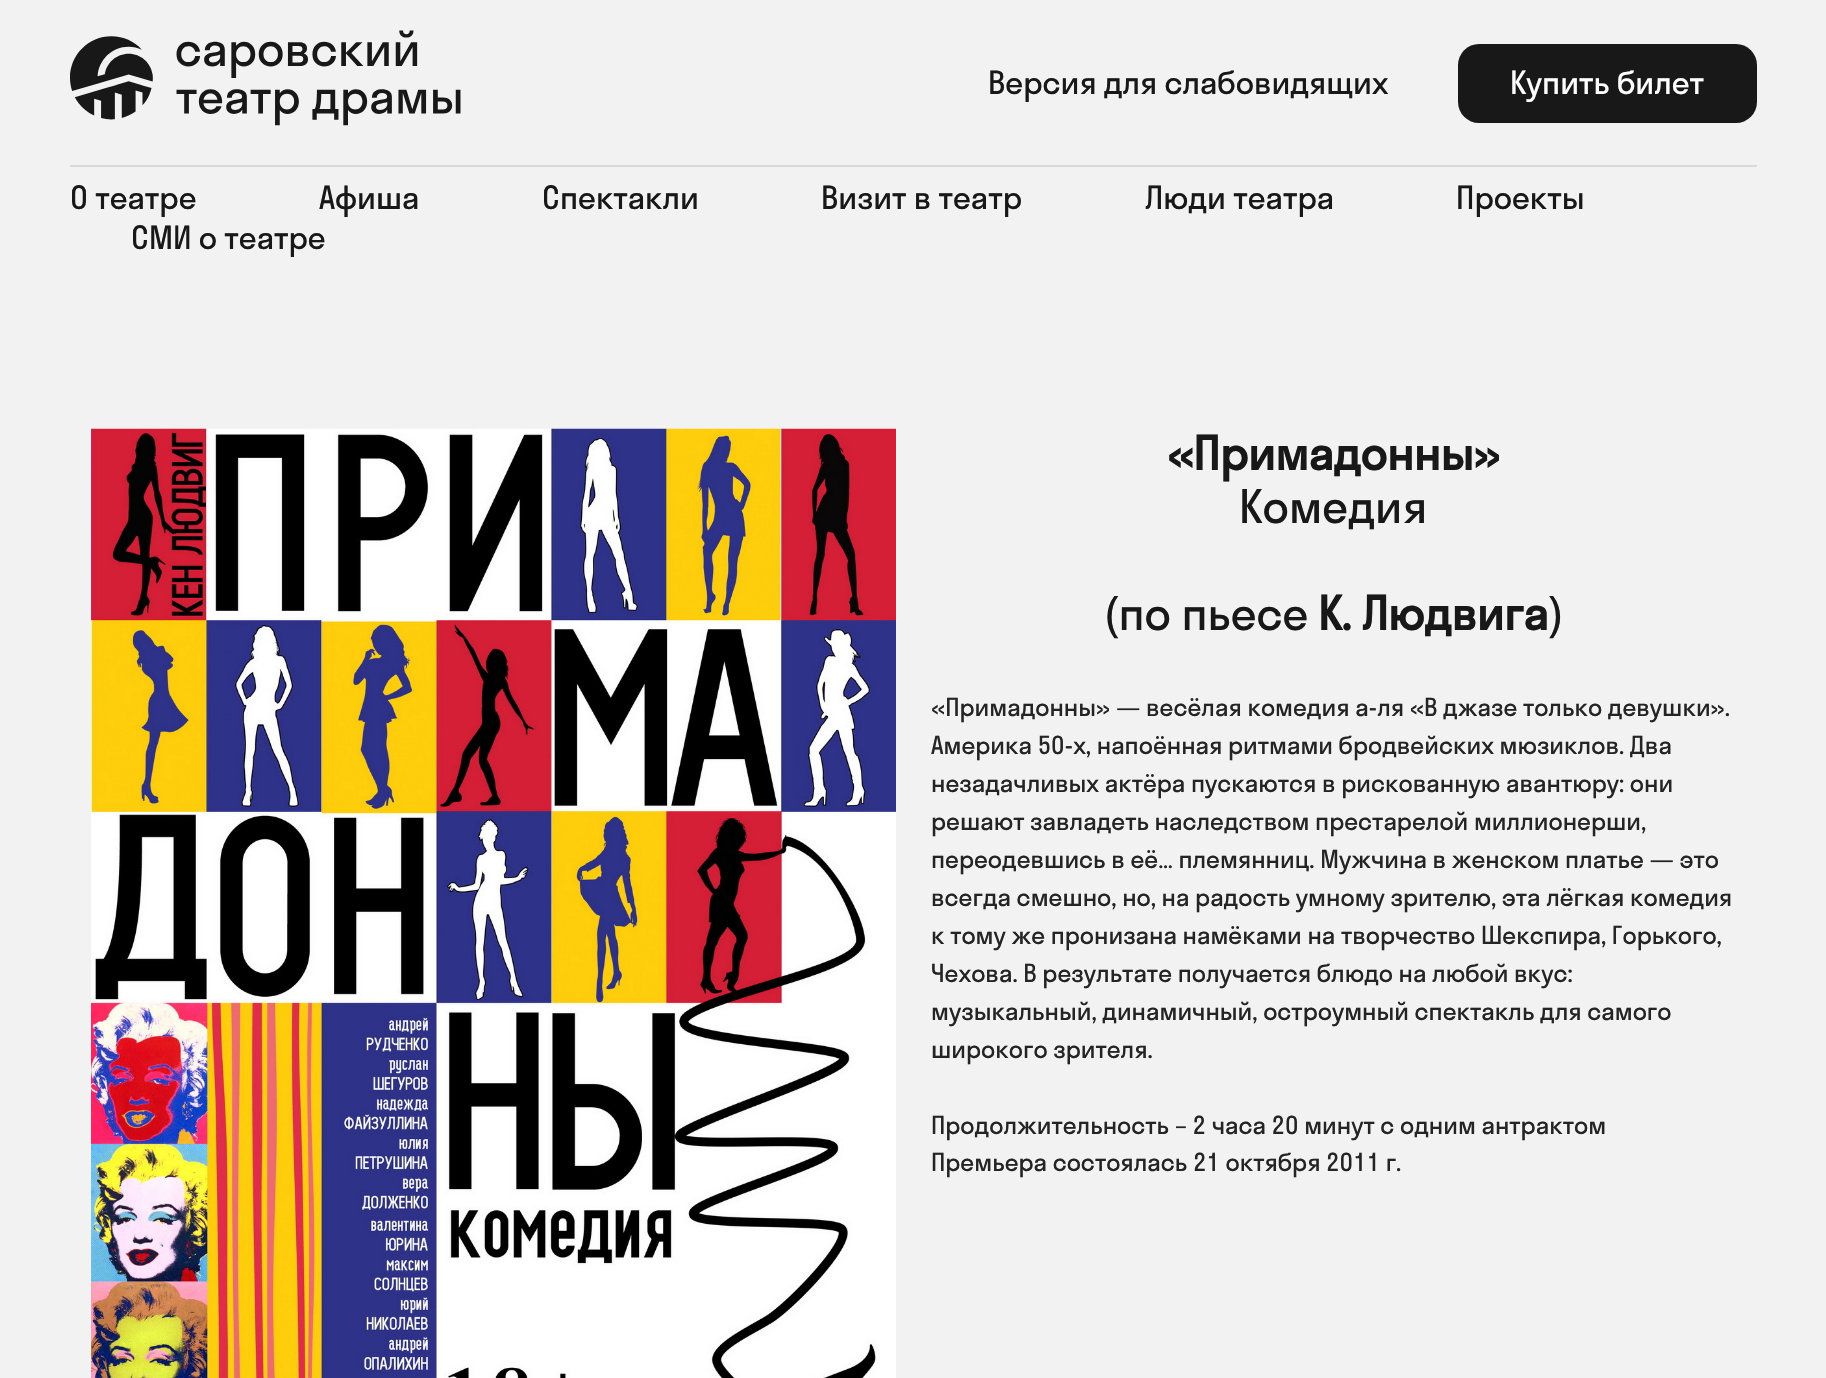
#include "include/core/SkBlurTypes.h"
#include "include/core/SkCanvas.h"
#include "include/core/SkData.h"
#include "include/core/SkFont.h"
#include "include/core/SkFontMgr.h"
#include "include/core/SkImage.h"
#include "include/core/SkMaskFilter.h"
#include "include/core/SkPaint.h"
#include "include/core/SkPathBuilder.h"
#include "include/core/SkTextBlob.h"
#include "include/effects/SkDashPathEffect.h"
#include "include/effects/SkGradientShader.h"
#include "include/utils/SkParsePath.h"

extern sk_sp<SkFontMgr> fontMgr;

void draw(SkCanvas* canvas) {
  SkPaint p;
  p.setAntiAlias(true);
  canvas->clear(SkColorSetRGB(242, 242, 242));
  canvas->drawImageRect(SkImages::DeferredFromEncodedData(SkData::MakeFromFileName("images/1.png")), SkRect::MakeLTRB(70, 30, 461, 126), SkSamplingOptions());
  p.setColor(SkColorSetRGB(24, 24, 24));
  canvas->drawRoundRect(SkRect::MakeLTRB(1458, 44, 1757, 123), 21, 21, p);
  p.setColor(SkColorSetRGB(217, 217, 217));
  canvas->drawRect(SkRect::MakeLTRB(70, 165, 1757, 167), p);
  canvas->drawImageRect(SkImages::DeferredFromEncodedData(SkData::MakeFromFileName("images/2.png")), SkRect::MakeLTRB(91, 428, 896, 1378), SkSamplingOptions());
  SkFont font1(fontMgr->matchFamilyStyle("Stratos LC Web", SkFontStyle::Normal()), 31.5f);
  font1.setSubpixel(true);
  p.setColor(SkColorSetRGB(24, 24, 24));
  canvas->drawString("Версия для слабовидящих", 988, 94, font1, p);
  p.setColor(SK_ColorWHITE);
  canvas->drawString("Купить билет", 1510, 94, font1, p);
  p.setColor(SkColorSetRGB(24, 24, 24));
  canvas->drawString("О театре", 70, 209, font1, p);
  canvas->drawString("Афиша", 319, 209, font1, p);
  canvas->drawString("Спектакли", 542, 209, font1, p);
  canvas->drawString("Визит в театр", 821, 209, font1, p);
  canvas->drawString("Люди театра", 1145, 209, font1, p);
  canvas->drawString("Проекты", 1456, 209, font1, p);
  canvas->drawString("СМИ о театре", 131, 249, font1, p);
  SkFont font2(fontMgr->matchFamilyStyle("Stratos LC Web", SkFontStyle::Bold()), 45.5f);
  font2.setSubpixel(true);
  canvas->drawString("«Примадонны»", 1167, 470, font2, p);
  SkFont font3(fontMgr->matchFamilyStyle("Stratos LC Web", SkFontStyle::Normal()), 45.5f);
  font3.setSubpixel(true);
  canvas->drawString("Комедия", 1239, 523, font3, p);
  canvas->drawString("(по пьесе", 1103, 630, font3, p);
  canvas->drawString("К. Людвига", 1318, 630, font2, p);
  canvas->drawString(")", 1549, 630, font3, p);
  SkFont font4(fontMgr->matchFamilyStyle("Stratos LC Web", SkFontStyle::Normal()), 24.5f);
  font4.setSubpixel(true);
  p.setColor(SkColorSetRGB(36, 36, 36));
  canvas->drawString("«Примадонны» — весёлая комедия а-ля «В джазе только девушки».", 931, 716, font4, p);
  canvas->drawString("Америка 50-х, напоённая ритмами бродвейских мюзиклов. Два", 931, 754, font4, p);
  canvas->drawString("незадачливых актёра пускаются в рискованную авантюру: они", 931, 792, font4, p);
  canvas->drawString("решают завладеть наследством престарелой миллионерши,", 931, 830, font4, p);
  canvas->drawString("переодевшись в её… племянниц. Мужчина в женском платье — это", 931, 868, font4, p);
  canvas->drawString("всегда смешно, но, на радость умному зрителю, эта лёгкая комедия", 931, 906, font4, p);
  canvas->drawString("к тому же пронизана намёками на творчество Шекспира, Горького,", 931, 944, font4, p);
  canvas->drawString("Чехова. В результате получается блюдо на любой вкус:", 931, 982, font4, p);
  canvas->drawString("музыкальный, динамичный, остроумный спектакль для самого", 931, 1020, font4, p);
  canvas->drawString("широкого зрителя.", 931, 1058, font4, p);
  canvas->drawString("Продолжительность – 2 часа 20 минут с одним антрактом", 931, 1134, font4, p);
  canvas->drawString("Премьера состоялась 21 октября 2011 г.", 931, 1171, font4, p);
}
